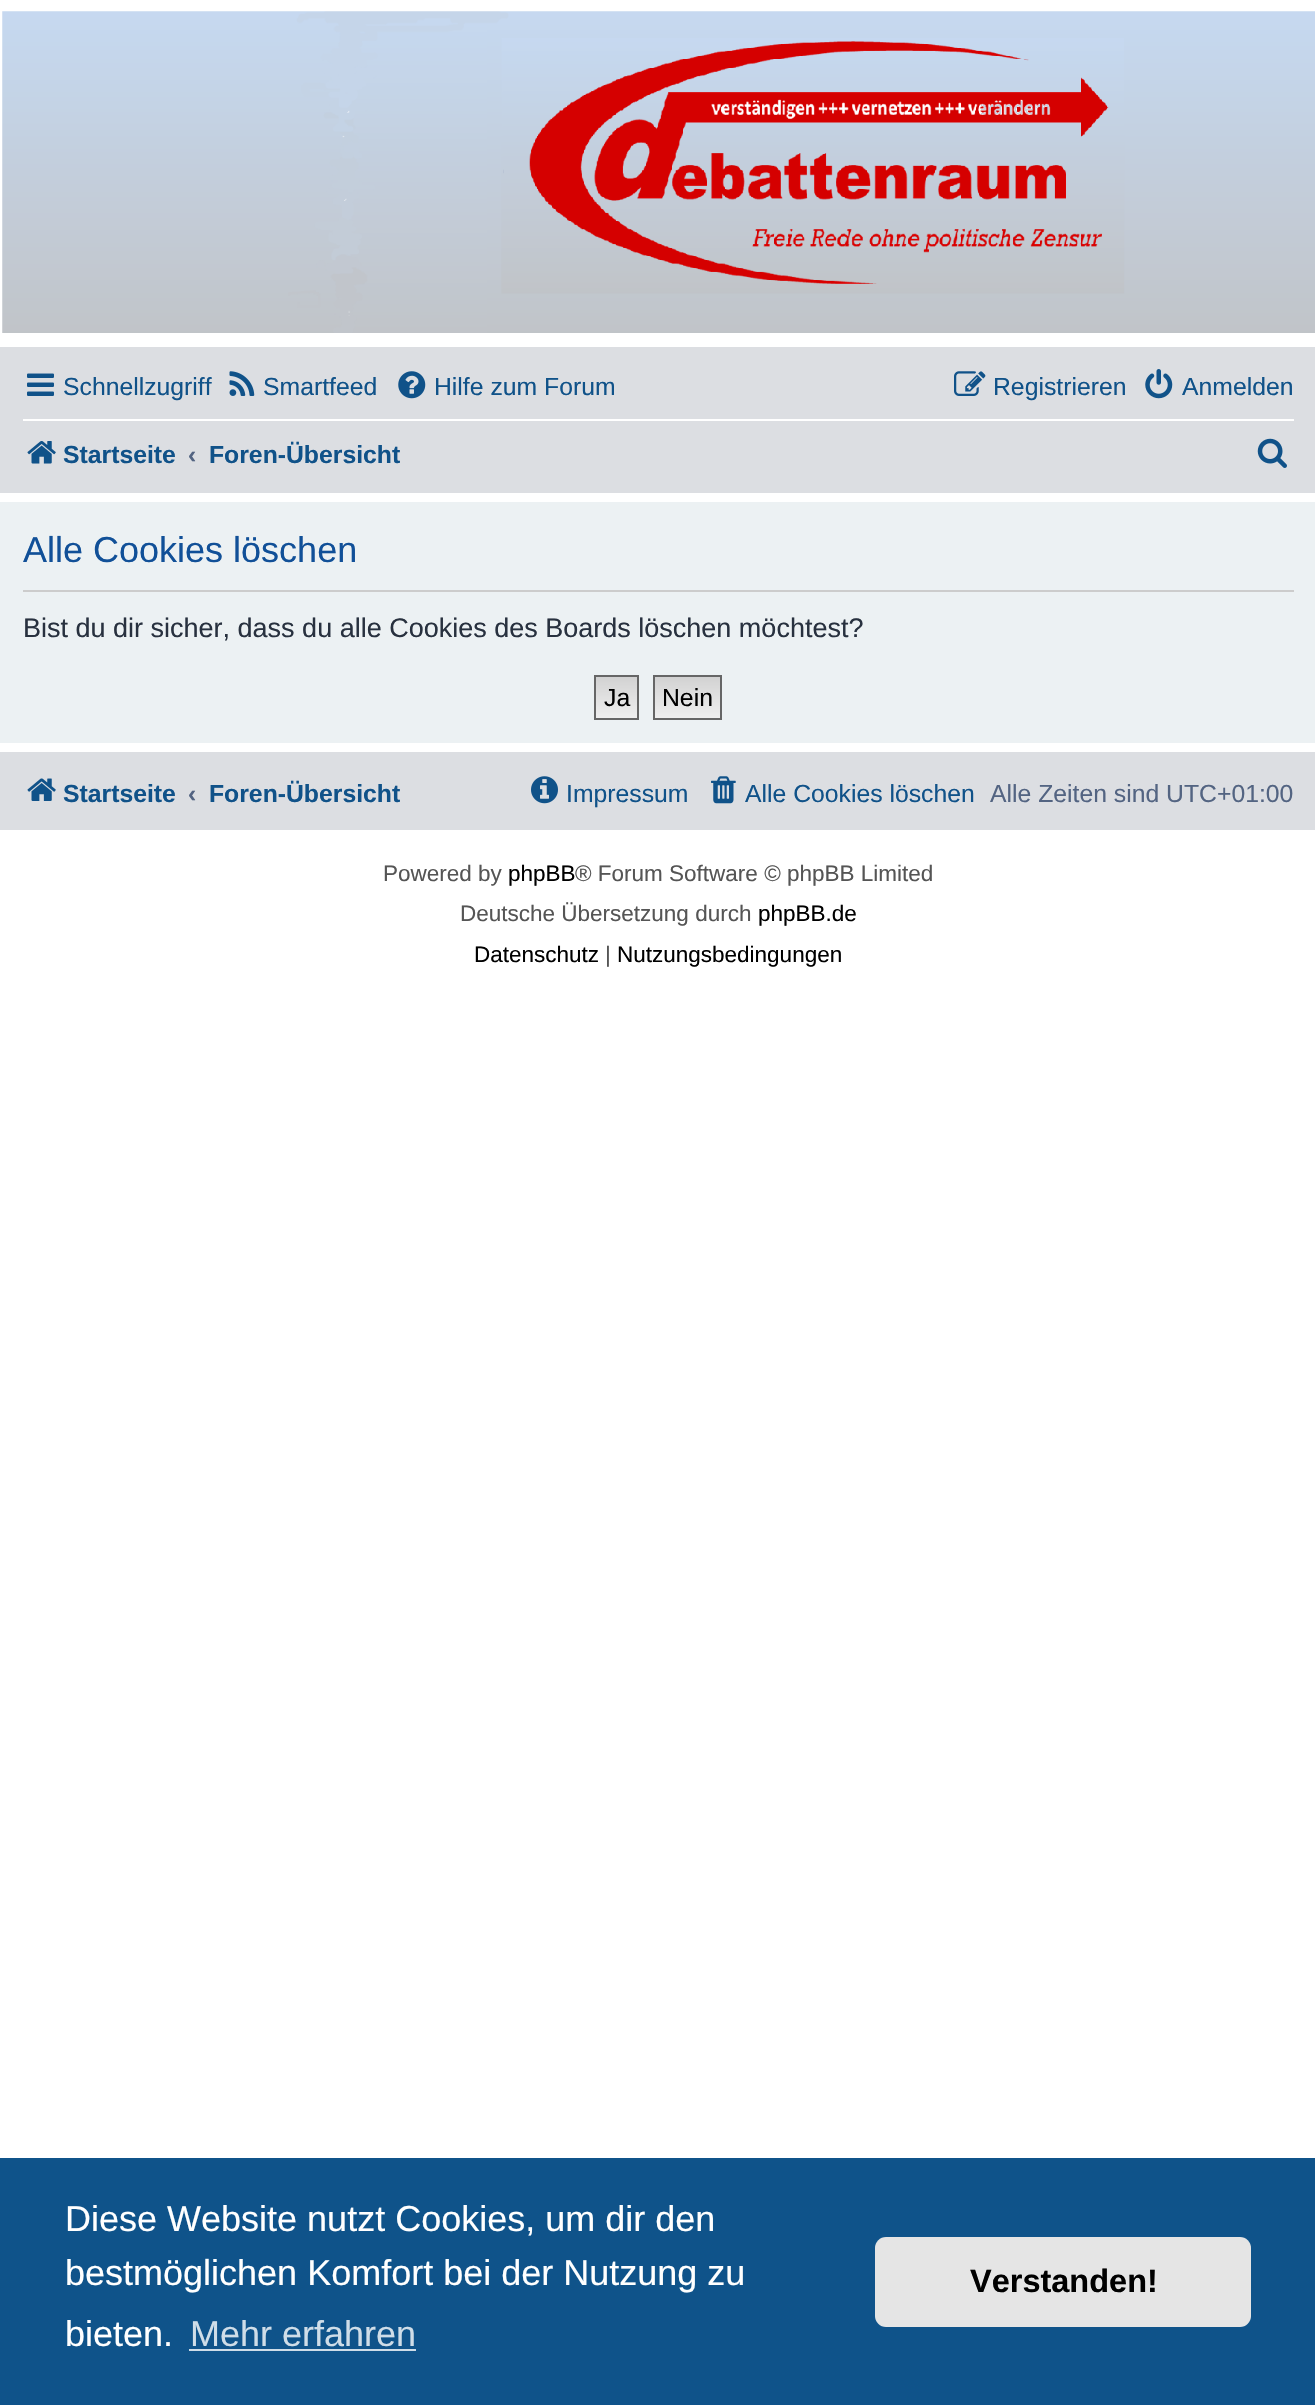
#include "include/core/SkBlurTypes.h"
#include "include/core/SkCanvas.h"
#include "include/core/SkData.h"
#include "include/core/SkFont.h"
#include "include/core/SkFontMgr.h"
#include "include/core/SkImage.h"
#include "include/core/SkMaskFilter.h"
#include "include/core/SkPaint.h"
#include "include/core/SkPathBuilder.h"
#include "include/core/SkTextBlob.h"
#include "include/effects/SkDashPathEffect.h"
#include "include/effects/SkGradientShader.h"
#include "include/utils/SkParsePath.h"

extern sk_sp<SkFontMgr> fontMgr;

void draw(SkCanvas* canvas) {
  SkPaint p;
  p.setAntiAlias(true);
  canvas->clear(SK_ColorWHITE);
  canvas->drawImageRect(SkImages::DeferredFromEncodedData(SkData::MakeFromFileName("images/1.png")), SkRect::MakeLTRB(2, 11, 1315, 333), SkSamplingOptions());
  p.setColor(SkColorSetRGB(220, 222, 226));
  canvas->drawRect(SkRect::MakeLTRB(0, 347, 1315, 493), p);
  canvas->drawImageRect(SkImages::DeferredFromEncodedData(SkData::MakeFromFileName("images/2.png")), SkRect::MakeLTRB(27, 373, 54, 396), SkSamplingOptions());
  canvas->drawImageRect(SkImages::DeferredFromEncodedData(SkData::MakeFromFileName("images/3.png")), SkRect::MakeLTRB(229, 371, 255, 396), SkSamplingOptions());
  canvas->drawImageRect(SkImages::DeferredFromEncodedData(SkData::MakeFromFileName("images/4.png")), SkRect::MakeLTRB(398, 371, 426, 399), SkSamplingOptions());
  canvas->drawImageRect(SkImages::DeferredFromEncodedData(SkData::MakeFromFileName("images/5.png")), SkRect::MakeLTRB(954, 371, 986, 396), SkSamplingOptions());
  canvas->drawImageRect(SkImages::DeferredFromEncodedData(SkData::MakeFromFileName("images/6.png")), SkRect::MakeLTRB(1145, 369, 1173, 399), SkSamplingOptions());
  p.setColor(SK_ColorWHITE);
  canvas->drawRect(SkRect::MakeLTRB(23, 419, 1294, 421), p);
  canvas->drawImageRect(SkImages::DeferredFromEncodedData(SkData::MakeFromFileName("images/7.png")), SkRect::MakeLTRB(27, 441, 56, 464), SkSamplingOptions());
  canvas->drawImageRect(SkImages::DeferredFromEncodedData(SkData::MakeFromFileName("images/8.png")), SkRect::MakeLTRB(1257, 438, 1287, 468), SkSamplingOptions());
  p.setColor(SkColorSetRGB(236, 241, 243));
  canvas->drawRect(SkRect::MakeLTRB(0, 502, 1315, 743), p);
  p.setColor(SkColorSetRGB(204, 204, 204));
  canvas->drawRect(SkRect::MakeLTRB(23, 590, 1294, 592), p);
  {
    const SkColor colors[] = {SkColorSetRGB(210, 210, 210), SkColorSetRGB(239, 239, 239)};
    const float stops[] = {0, 1};
    const SkPoint ends[] = {{617, 677}, {617, 718}};
    p.setShader(SkGradientShader::MakeLinear(ends, colors, stops, 2, SkTileMode::kClamp));
    p.setAlpha(255);
  }
  canvas->drawRect(SkRect::MakeLTRB(596, 677, 637, 718), p);
  p.setStyle(SkPaint::kStroke_Style);
  p.setStrokeWidth(2);
  p.setShader(nullptr);
  p.setColor(SkColorSetRGB(102, 102, 102));
  canvas->drawRect(SkRect::MakeLTRB(595, 676, 638, 719), p);
  p.setStyle(SkPaint::kFill_Style);
  {
    const SkColor colors[] = {SkColorSetRGB(210, 210, 210), SkColorSetRGB(239, 239, 239)};
    const float stops[] = {0, 1};
    const SkPoint ends[] = {{687, 677}, {687, 718}};
    p.setShader(SkGradientShader::MakeLinear(ends, colors, stops, 2, SkTileMode::kClamp));
    p.setAlpha(255);
  }
  canvas->drawRect(SkRect::MakeLTRB(655, 677, 720, 718), p);
  p.setStyle(SkPaint::kStroke_Style);
  p.setShader(nullptr);
  p.setColor(SkColorSetRGB(102, 102, 102));
  canvas->drawRect(SkRect::MakeLTRB(654, 676, 721, 719), p);
  p.setStyle(SkPaint::kFill_Style);
  p.setColor(SkColorSetRGB(220, 222, 226));
  canvas->drawRect(SkRect::MakeLTRB(0, 752, 1315, 830), p);
  canvas->drawImageRect(SkImages::DeferredFromEncodedData(SkData::MakeFromFileName("images/9.png")), SkRect::MakeLTRB(27, 778, 56, 801), SkSamplingOptions());
  canvas->drawImageRect(SkImages::DeferredFromEncodedData(SkData::MakeFromFileName("images/10.png")), SkRect::MakeLTRB(531, 776, 558, 804), SkSamplingOptions());
  canvas->drawImageRect(SkImages::DeferredFromEncodedData(SkData::MakeFromFileName("images/11.png")), SkRect::MakeLTRB(711, 776, 736, 804), SkSamplingOptions());
  p.setColor(SkColorSetRGB(15, 83, 138));
  canvas->drawRect(SkRect::MakeLTRB(0, 2158, 1315, 2405), p);
  p.setColor(SkColorSetRGB(207, 221, 232));
  canvas->drawRect(SkRect::MakeLTRB(189, 2349, 416, 2351), p);
  p.setColor(SkColorSetRGB(229, 229, 229));
  canvas->drawRoundRect(SkRect::MakeLTRB(875, 2237, 1251, 2327), 11, 11, p);
  SkFont font1(fontMgr->matchFamilyStyle("Liberation Sans", SkFontStyle::Normal()), 24.75f);
  font1.setSubpixel(true);
  p.setColor(SkColorSetRGB(16, 82, 137));
  canvas->drawString("Schnellzugriff", 63, 395, font1, p);
  canvas->drawString("Smartfeed", 263, 395, font1, p);
  canvas->drawString("Hilfe zum Forum", 434, 395, font1, p);
  canvas->drawString("Registrieren", 993, 395, font1, p);
  canvas->drawString("Anmelden", 1182, 395, font1, p);
  SkFont font2(fontMgr->matchFamilyStyle("Liberation Sans", SkFontStyle::Bold()), 24.75f);
  font2.setSubpixel(true);
  canvas->drawString("Startseite", 63, 463, font2, p);
  p.setColor(SkColorSetRGB(83, 100, 130));
  canvas->drawString("‹", 188, 463, font2, p);
  p.setColor(SkColorSetRGB(16, 82, 137));
  canvas->drawString("Foren-Übersicht", 209, 463, font2, p);
  SkFont font3(fontMgr->matchFamilyStyle("Liberation Sans", SkFontStyle::Normal()), 36);
  font3.setSubpixel(true);
  p.setColor(SkColorSetRGB(17, 80, 152));
  canvas->drawString("Alle Cookies löschen", 23, 562, font3, p);
  SkFont font4(fontMgr->matchFamilyStyle("Liberation Sans", SkFontStyle::Normal()), 27);
  font4.setSubpixel(true);
  p.setColor(SkColorSetRGB(40, 49, 63));
  canvas->drawString("Bist du dir sicher, dass du alle Cookies des Boards löschen möchtest?", 23, 637, font4, p);
  p.setColor(SK_ColorBLACK);
  canvas->drawString("Ja", 604, 706, font1, p);
  canvas->drawString("Nein", 662, 706, font1, p);
  p.setColor(SkColorSetRGB(16, 82, 137));
  canvas->drawString("Startseite", 63, 802, font2, p);
  p.setColor(SkColorSetRGB(83, 100, 130));
  canvas->drawString("‹", 188, 802, font2, p);
  p.setColor(SkColorSetRGB(16, 82, 137));
  canvas->drawString("Foren-Übersicht", 209, 802, font2, p);
  canvas->drawString("Impressum", 566, 802, font1, p);
  canvas->drawString("Alle Cookies löschen", 745, 802, font1, p);
  p.setColor(SkColorSetRGB(83, 100, 130));
  canvas->drawString("Alle Zeiten sind UTC+01:00", 990, 802, font1, p);
  SkFont font5(fontMgr->matchFamilyStyle("Liberation Sans", SkFontStyle::Normal()), 22.5f);
  font5.setSubpixel(true);
  p.setColor(SkColorSetRGB(85, 85, 85));
  canvas->drawString("Powered by", 383, 881, font5, p);
  p.setColor(SK_ColorBLACK);
  canvas->drawString("phpBB", 508, 881, font5, p);
  p.setColor(SkColorSetRGB(85, 85, 85));
  canvas->drawString("® Forum Software © phpBB Limited", 575, 881, font5, p);
  canvas->drawString("Deutsche Übersetzung durch", 460, 921, font5, p);
  p.setColor(SK_ColorBLACK);
  canvas->drawString("phpBB.de", 758, 921, font5, p);
  canvas->drawString("Datenschutz", 474, 962, font5, p);
  p.setColor(SkColorSetRGB(85, 85, 85));
  canvas->drawString("|", 605, 962, font5, p);
  p.setColor(SK_ColorBLACK);
  canvas->drawString("Nutzungsbedingungen", 617, 962, font5, p);
  p.setColor(SK_ColorWHITE);
  canvas->drawString("Diese Website nutzt Cookies, um dir den", 65, 2231, font3, p);
  canvas->drawString("bestmöglichen Komfort bei der Nutzung zu", 65, 2285, font3, p);
  canvas->drawString("bieten.", 65, 2346, font3, p);
  p.setColor(SkColorSetRGB(207, 221, 232));
  canvas->drawString("Mehr erfahren", 190, 2346, font3, p);
  SkFont font6(fontMgr->matchFamilyStyle("Liberation Sans", SkFontStyle::Bold()), 32.5f);
  font6.setSubpixel(true);
  p.setColor(SK_ColorBLACK);
  canvas->drawString("Verstanden!", 970, 2292, font6, p);
}
